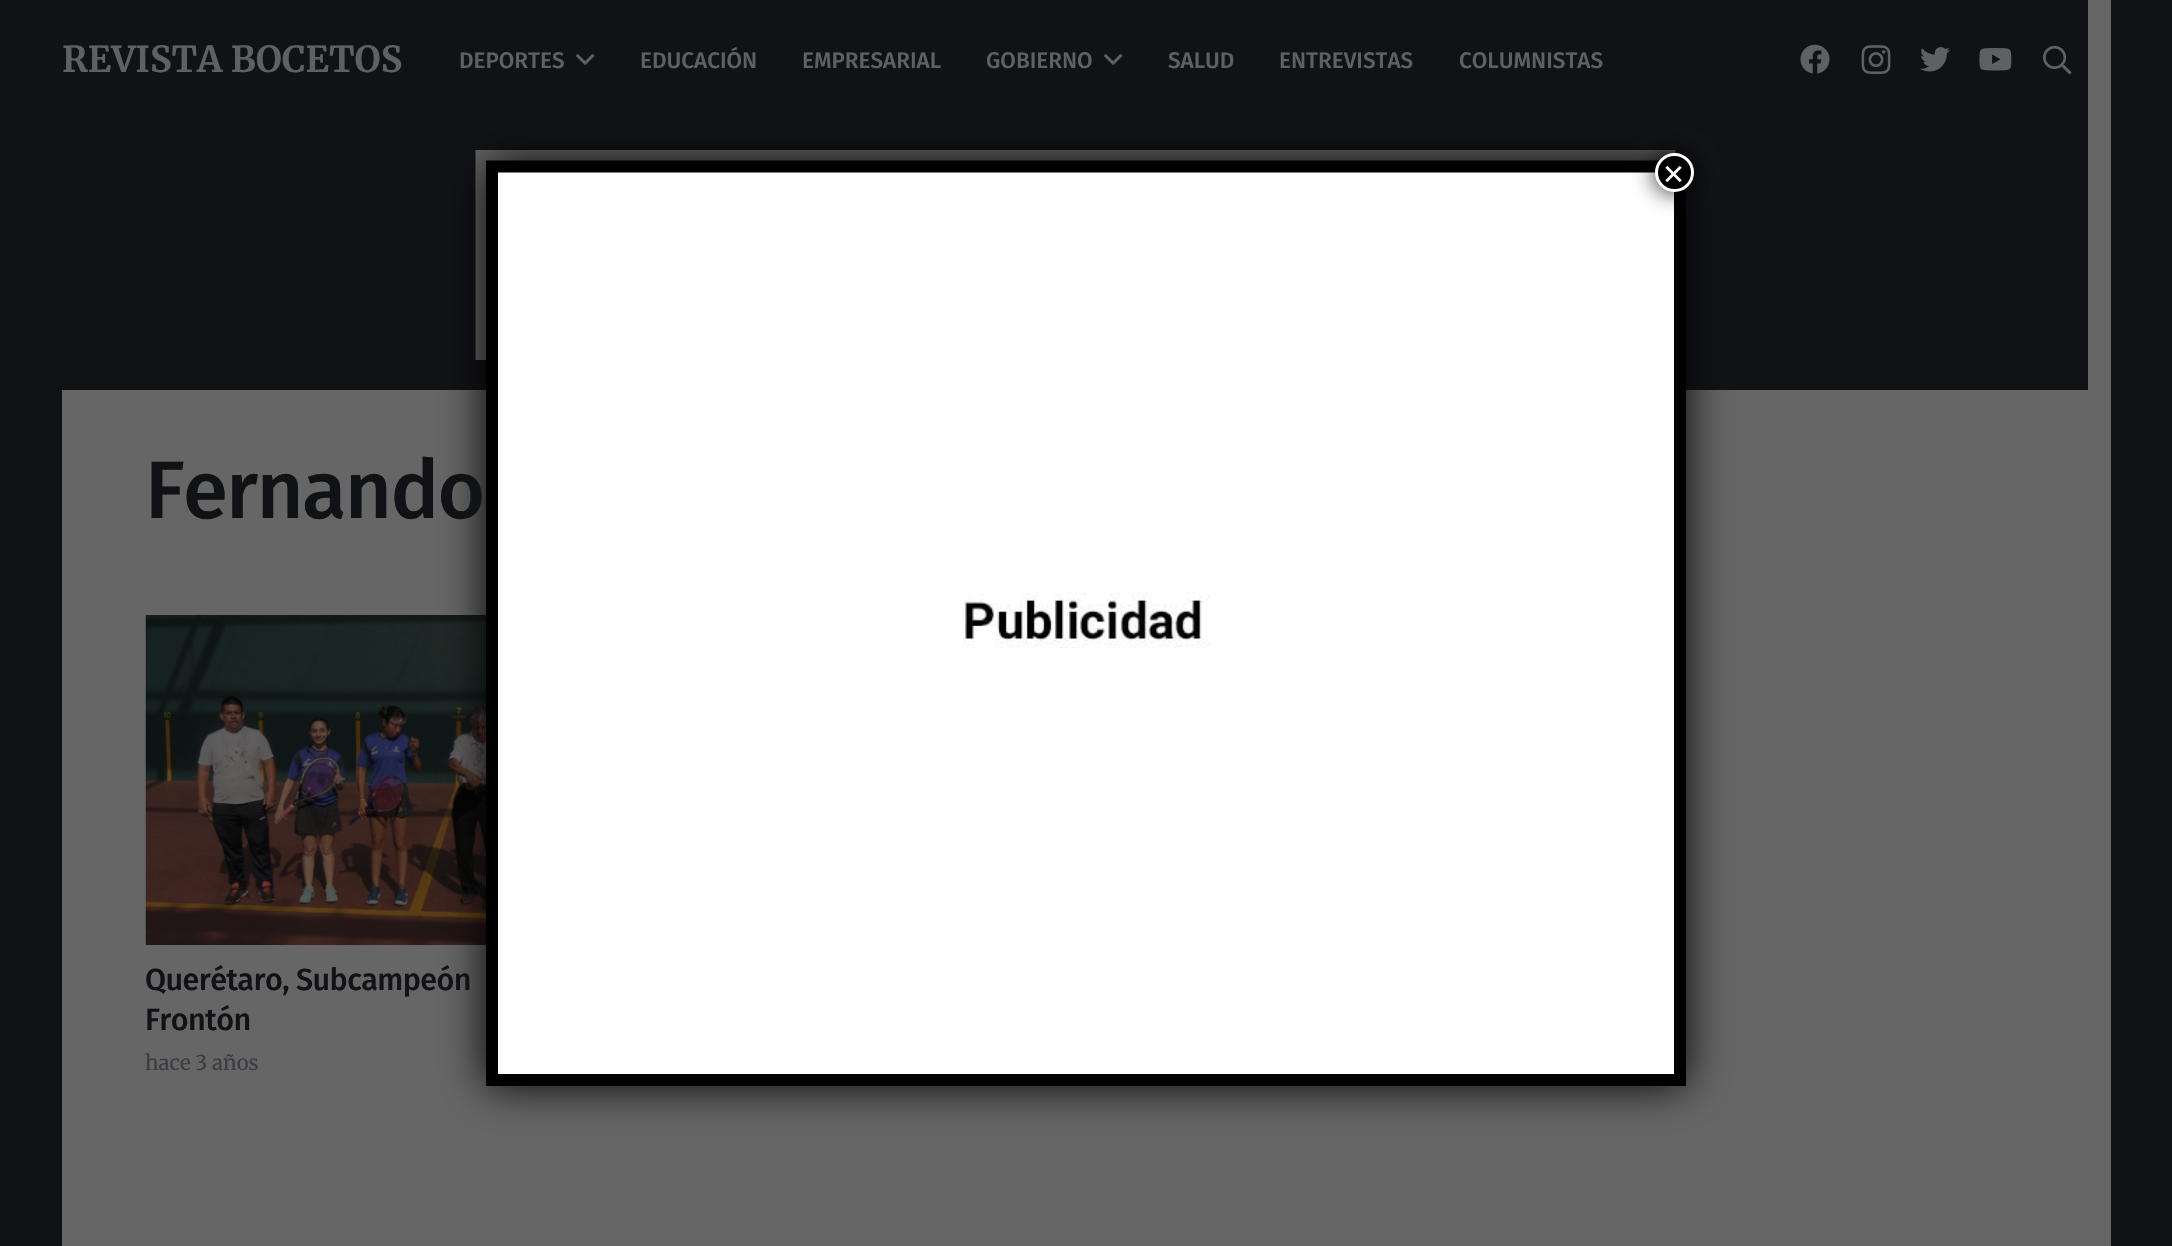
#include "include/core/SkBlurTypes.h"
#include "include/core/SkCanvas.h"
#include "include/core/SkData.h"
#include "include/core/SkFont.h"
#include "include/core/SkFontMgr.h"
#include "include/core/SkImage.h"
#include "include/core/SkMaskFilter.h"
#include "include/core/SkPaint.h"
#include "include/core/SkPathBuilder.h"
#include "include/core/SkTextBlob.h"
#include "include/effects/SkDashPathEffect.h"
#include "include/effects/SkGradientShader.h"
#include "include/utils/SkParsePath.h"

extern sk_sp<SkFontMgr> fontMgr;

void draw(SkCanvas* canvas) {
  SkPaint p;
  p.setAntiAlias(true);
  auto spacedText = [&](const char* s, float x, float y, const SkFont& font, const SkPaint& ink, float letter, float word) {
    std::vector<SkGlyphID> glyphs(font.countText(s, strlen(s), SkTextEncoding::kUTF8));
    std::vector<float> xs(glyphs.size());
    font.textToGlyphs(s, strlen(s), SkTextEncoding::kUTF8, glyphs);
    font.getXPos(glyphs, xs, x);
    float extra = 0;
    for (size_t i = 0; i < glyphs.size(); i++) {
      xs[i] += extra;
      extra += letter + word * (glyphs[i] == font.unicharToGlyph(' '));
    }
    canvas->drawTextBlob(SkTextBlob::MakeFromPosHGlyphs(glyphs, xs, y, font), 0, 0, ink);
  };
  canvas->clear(SkColorSetRGB(17, 18, 22));
  p.setColor(SkColorSetRGB(102, 102, 102));
  canvas->drawRect(SkRect::MakeLTRB(62, 0, 2111, 1246), p);
  p.setColor(SkColorSetRGB(17, 18, 22));
  canvas->drawRect(SkRect::MakeLTRB(62, 0, 2088, 390), p);
  canvas->drawImageRect(SkImages::DeferredFromEncodedData(SkData::MakeFromFileName("images/1.png")), SkRect::MakeLTRB(576, 54, 595, 65), SkSamplingOptions());
  canvas->drawImageRect(SkImages::DeferredFromEncodedData(SkData::MakeFromFileName("images/1.png")), SkRect::MakeLTRB(1104, 54, 1123, 65), SkSamplingOptions());
  canvas->drawImageRect(SkImages::DeferredFromEncodedData(SkData::MakeFromFileName("images/2.png")), SkRect::MakeLTRB(1800, 44, 1830, 74), SkSamplingOptions());
  canvas->drawImageRect(SkImages::DeferredFromEncodedData(SkData::MakeFromFileName("images/3.png")), SkRect::MakeLTRB(1861, 45, 1891, 75), SkSamplingOptions());
  canvas->drawImageRect(SkImages::DeferredFromEncodedData(SkData::MakeFromFileName("images/4.png")), SkRect::MakeLTRB(1920, 47, 1950, 72), SkSamplingOptions());
  canvas->drawImageRect(SkImages::DeferredFromEncodedData(SkData::MakeFromFileName("images/5.png")), SkRect::MakeLTRB(1979, 48, 2012, 71), SkSamplingOptions());
  canvas->drawImageRect(SkImages::DeferredFromEncodedData(SkData::MakeFromFileName("images/6.png")), SkRect::MakeLTRB(2043, 45, 2072, 75), SkSamplingOptions());
  canvas->drawImageRect(SkImages::DeferredFromEncodedData(SkData::MakeFromFileName("images/7.png")), SkRect::MakeLTRB(475, 150, 1676, 360), SkSamplingOptions());
  canvas->drawImageRect(SkImages::DeferredFromEncodedData(SkData::MakeFromFileName("images/8.png")), SkRect::MakeLTRB(145, 615, 486, 945), SkSamplingOptions());
  p.setColor(SkColorSetRGB(2, 2, 2));
  p.setMaskFilter(SkMaskFilter::MakeBlur(kNormal_SkBlurStyle, 22.5f));
  canvas->drawRoundRect(SkRect::MakeLTRB(486, 161, 1686, 1086), 5, 5, p);
  p.setMaskFilter(nullptr);
  p.setColor(SK_ColorWHITE);
  canvas->drawRect(SkRect::MakeLTRB(498, 172, 1674, 1074), p);
  p.setStyle(SkPaint::kStroke_Style);
  p.setStrokeWidth(12);
  p.setColor(SK_ColorBLACK);
  canvas->drawPath(SkPathBuilder().moveTo(492, 166.5f).lineTo(1680, 166.5f).lineTo(1680, 1080).lineTo(492, 1080).close().detach(), p);
  p.setStyle(SkPaint::kFill_Style);
  p.setColor(SkColorSetARGB(191, 2, 2, 2));
  p.setMaskFilter(SkMaskFilter::MakeBlur(kNormal_SkBlurStyle, 11));
  canvas->drawRoundRect(SkRect::MakeLTRB(1653, 152, 1695, 194), 21, 21, p);
  p.setMaskFilter(nullptr);
  p.setColor(SK_ColorBLACK);
  canvas->drawCircle(1674.5f, 172.5f, 18, p);
  p.setStyle(SkPaint::kStroke_Style);
  p.setStrokeWidth(3);
  p.setColor(SK_ColorWHITE);
  canvas->drawCircle(1674.5f, 172.5f, 18, p);
  canvas->drawImageRect(SkImages::DeferredFromEncodedData(SkData::MakeFromFileName("images/9.png")), SkRect::MakeLTRB(963, 592, 1210, 649), SkSamplingOptions());
  SkFont font1(fontMgr->matchFamilyStyle("Merriweather", SkFontStyle::Bold()), 35.75f);
  font1.setSubpixel(true);
  p.setStyle(SkPaint::kFill_Style);
  p.setColor(SkColorSetRGB(95, 96, 97));
  canvas->drawString("REVISTA BOCETOS", 62, 72, font1, p);
  SkFont font2(fontMgr->matchFamilyStyle("Fira Sans", SkFontStyle(500, SkFontStyle::kNormal_Width, SkFontStyle::kUpright_Slant)), 22.5f);
  font2.setSubpixel(true);
  canvas->drawString("DEPORTES", 459, 68, font2, p);
  canvas->drawString("EDUCACIÓN", 640, 68, font2, p);
  canvas->drawString("EMPRESARIAL", 802, 68, font2, p);
  canvas->drawString("GOBIERNO", 986, 68, font2, p);
  canvas->drawString("SALUD", 1168, 68, font2, p);
  canvas->drawString("ENTREVISTAS", 1279, 68, font2, p);
  canvas->drawString("COLUMNISTAS", 1459, 68, font2, p);
  SkFont font3(fontMgr->matchFamilyStyle("Fira Sans", SkFontStyle(500, SkFontStyle::kNormal_Width, SkFontStyle::kUpright_Slant)), 81.5f);
  font3.setSubpixel(true);
  p.setColor(SkColorSetRGB(17, 18, 22));
  spacedText("Fernando", 145, 518, font3, p, -1.75f, 0);
  SkFont font4(fontMgr->matchFamilyStyle("Fira Sans", SkFontStyle(500, SkFontStyle::kNormal_Width, SkFontStyle::kUpright_Slant)), 30.6f);
  font4.setSubpixel(true);
  spacedText("Querétaro, Subcampeón", 145, 990, font4, p, -0.6f, 0);
  spacedText("Frontón", 145, 1030, font4, p, -0.6f, 0);
  SkFont font5(fontMgr->matchFamilyStyle("Merriweather", SkFontStyle::Normal()), 20.5f);
  font5.setSubpixel(true);
  p.setColor(SkColorSetRGB(60, 61, 65));
  canvas->drawString("hace 3 años", 145, 1070, font5, p);
  SkFont font6(fontMgr->matchFamilyStyle("Liberation Sans", SkFontStyle::Normal()), 36);
  font6.setSubpixel(true);
  p.setColor(SK_ColorWHITE);
  canvas->drawString("×", 1663, 186, font6, p);
}
